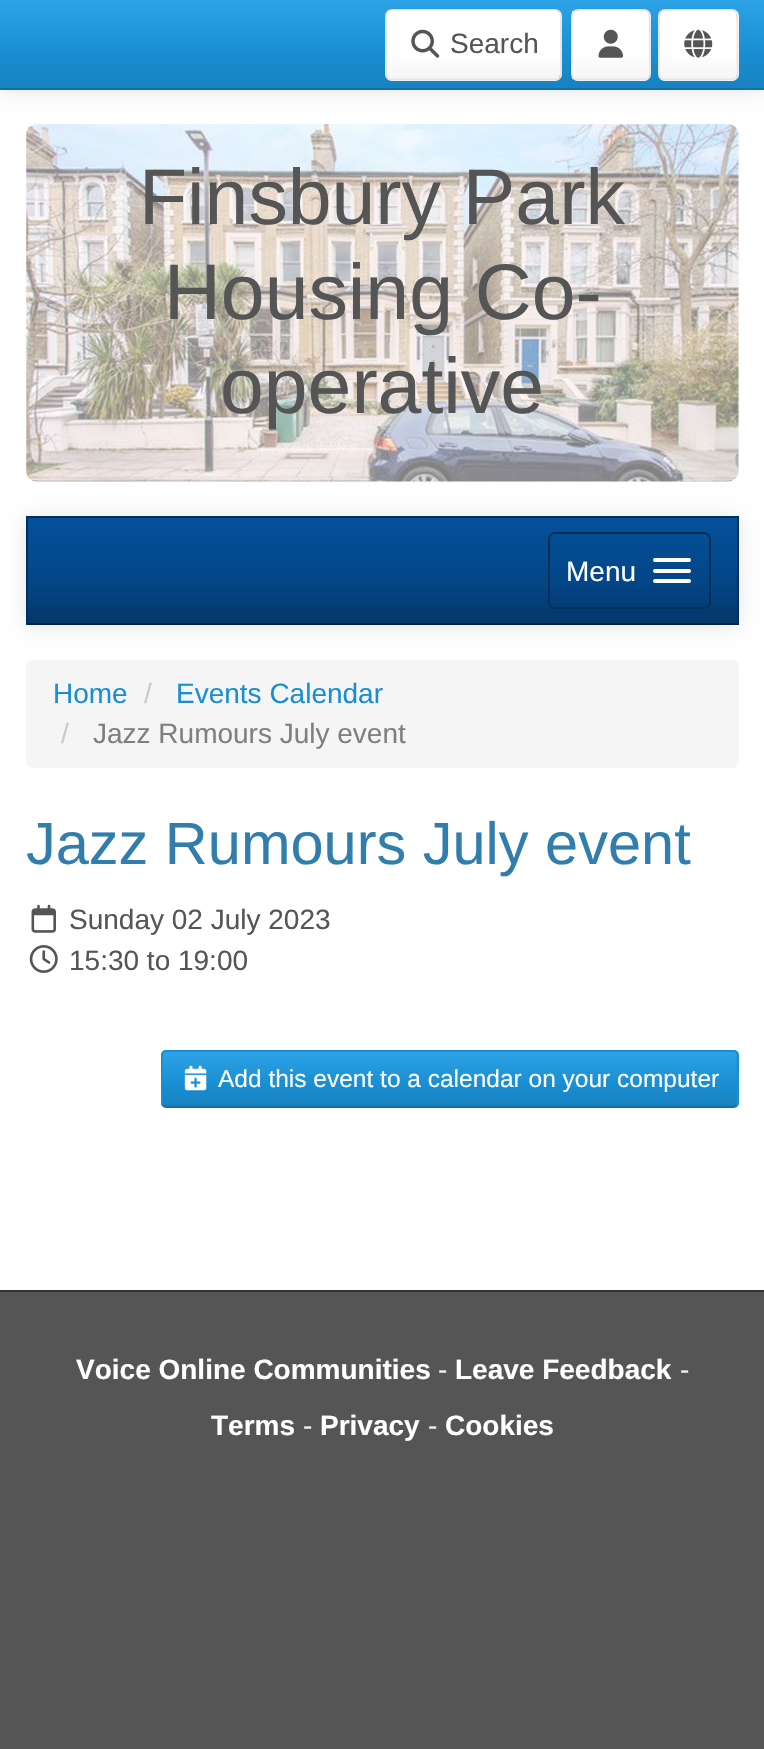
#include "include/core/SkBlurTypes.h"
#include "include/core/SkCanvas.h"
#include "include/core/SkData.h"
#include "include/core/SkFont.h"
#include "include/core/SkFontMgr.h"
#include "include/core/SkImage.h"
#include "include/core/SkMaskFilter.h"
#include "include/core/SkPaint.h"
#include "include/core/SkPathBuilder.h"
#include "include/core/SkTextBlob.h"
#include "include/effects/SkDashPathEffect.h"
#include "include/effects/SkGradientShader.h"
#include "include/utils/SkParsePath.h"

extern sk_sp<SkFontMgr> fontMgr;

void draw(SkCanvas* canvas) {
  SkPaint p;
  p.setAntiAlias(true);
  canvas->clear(SK_ColorWHITE);
  p.setColor(SkColorSetARGB(26, 0, 0, 0));
  p.setMaskFilter(SkMaskFilter::MakeBlur(kNormal_SkBlurStyle, 9));
  canvas->drawRect(SkRect::MakeLTRB(0, 2, 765, 91), p);
  p.setMaskFilter(nullptr);
  {
    const SkColor colors[] = {SkColorSetRGB(46, 162, 230), SkColorSetRGB(25, 142, 210), SkColorSetRGB(23, 130, 192)};
    const float stops[] = {0, 0.6f, 1};
    const SkPoint ends[] = {{382, 0}, {382, 88}};
    p.setShader(SkGradientShader::MakeLinear(ends, colors, stops, 3, SkTileMode::kClamp));
    p.setAlpha(255);
  }
  canvas->drawRect(SkRect::MakeLTRB(0, 0, 764, 88), p);
  p.setShader(nullptr);
  p.setColor(SkColorSetRGB(20, 111, 164));
  canvas->drawRect(SkRect::MakeLTRB(0, 88, 764, 90), p);
  p.setColor(SK_ColorWHITE);
  canvas->drawRoundRect(SkRect::MakeLTRB(385, 9, 562, 81), 7, 7, p);
  {
    const SkColor colors[] = {SK_ColorWHITE, SK_ColorWHITE, SkColorSetRGB(245, 245, 245)};
    const float stops[] = {0, 0.6f, 1};
    const SkPoint ends[] = {{473, 10}, {473, 79}};
    p.setShader(SkGradientShader::MakeLinear(ends, colors, stops, 3, SkTileMode::kClamp));
    p.setAlpha(255);
  }
  canvas->drawRect(SkRect::MakeLTRB(387, 58, 560, 79), p);
  p.setStyle(SkPaint::kStroke_Style);
  p.setStrokeWidth(1.8f);
  p.setShader(nullptr);
  p.setColor(SkColorSetRGB(230, 230, 230));
  canvas->drawPath(SkPathBuilder().moveTo(559, 78).cubicTo(558, 79, 556.5f, 79.5f, 555, 79.5f).lineTo(392, 79.5f).cubicTo(390.5f, 79.5f, 389, 79, 387.5f, 78).detach(), p);
  p.setColor(SkColorSetARGB(26, 0, 0, 0));
  canvas->drawPath(SkPathBuilder().moveTo(387.5f, 78).cubicTo(386.5f, 76.5f, 386, 75, 386, 73.5f).lineTo(386, 16).cubicTo(386, 14, 386.5f, 12.5f, 387.5f, 11.5f).cubicTo(389, 10.5f, 390.5f, 9.5f, 392, 9.5f).lineTo(555, 9.5f).cubicTo(556.5f, 9.5f, 558, 10.5f, 559, 11.5f).cubicTo(560, 12.5f, 561, 14, 561, 16).lineTo(561, 73.5f).cubicTo(561, 75, 560, 76.5f, 559, 78).detach(), p);
  canvas->drawImageRect(SkImages::DeferredFromEncodedData(SkData::MakeFromFileName("images/1.png")), SkRect::MakeLTRB(411, 29, 440, 58), SkSamplingOptions());
  p.setStyle(SkPaint::kFill_Style);
  p.setColor(SK_ColorWHITE);
  canvas->drawRoundRect(SkRect::MakeLTRB(571, 9, 651, 81), 7, 7, p);
  {
    const SkColor colors[] = {SK_ColorWHITE, SK_ColorWHITE, SkColorSetRGB(245, 245, 245)};
    const float stops[] = {0, 0.6f, 1};
    const SkPoint ends[] = {{611, 10}, {611, 79}};
    p.setShader(SkGradientShader::MakeLinear(ends, colors, stops, 3, SkTileMode::kClamp));
    p.setAlpha(255);
  }
  canvas->drawRect(SkRect::MakeLTRB(572, 11, 649, 79), p);
  p.setStyle(SkPaint::kStroke_Style);
  p.setShader(nullptr);
  p.setColor(SkColorSetRGB(230, 230, 230));
  canvas->drawPath(SkPathBuilder().moveTo(648.5f, 78).cubicTo(647, 79, 645.5f, 79.5f, 644, 79.5f).lineTo(577.5f, 79.5f).cubicTo(576, 79.5f, 574.5f, 79, 573, 78).detach(), p);
  p.setColor(SkColorSetARGB(26, 0, 0, 0));
  canvas->drawPath(SkPathBuilder().moveTo(573, 78).cubicTo(570, 74.5f, 571.5f, 67, 571.5f, 64).lineTo(571.5f, 25.5f).cubicTo(571.5f, 8.5f, 571.5f, 9.5f, 588.5f, 9.5f).lineTo(633, 9.5f).cubicTo(650, 9.5f, 650, 8.5f, 650, 25.5f).lineTo(650, 64).cubicTo(650, 67, 651.5f, 74.5f, 648.5f, 78).detach(), p);
  canvas->drawImageRect(SkImages::DeferredFromEncodedData(SkData::MakeFromFileName("images/2.png")), SkRect::MakeLTRB(598, 29, 623, 58), SkSamplingOptions());
  p.setStyle(SkPaint::kFill_Style);
  p.setColor(SK_ColorWHITE);
  canvas->drawRoundRect(SkRect::MakeLTRB(658, 9, 739, 81), 7, 7, p);
  {
    const SkColor colors[] = {SK_ColorWHITE, SK_ColorWHITE, SkColorSetRGB(245, 245, 245)};
    const float stops[] = {0, 0.6f, 1};
    const SkPoint ends[] = {{698, 10}, {698, 79}};
    p.setShader(SkGradientShader::MakeLinear(ends, colors, stops, 3, SkTileMode::kClamp));
    p.setAlpha(255);
  }
  canvas->drawRect(SkRect::MakeLTRB(660, 58, 737, 79), p);
  p.setStyle(SkPaint::kStroke_Style);
  p.setShader(nullptr);
  p.setColor(SkColorSetRGB(230, 230, 230));
  canvas->drawPath(SkPathBuilder().moveTo(736, 78).cubicTo(734.5f, 79, 733, 79.5f, 731.5f, 79.5f).lineTo(665, 79.5f).cubicTo(663.5f, 79.5f, 662, 79, 660.5f, 78).detach(), p);
  p.setColor(SkColorSetARGB(26, 0, 0, 0));
  canvas->drawPath(SkPathBuilder().moveTo(660.5f, 78).cubicTo(657.5f, 74.5f, 659, 67, 659, 64).lineTo(659, 25.5f).cubicTo(659, 8.5f, 659, 9.5f, 676, 9.5f).lineTo(720.5f, 9.5f).cubicTo(737.5f, 9.5f, 737.5f, 8.5f, 737.5f, 25.5f).lineTo(737.5f, 64).cubicTo(737.5f, 67, 739, 74.5f, 736, 78).detach(), p);
  canvas->drawImageRect(SkImages::DeferredFromEncodedData(SkData::MakeFromFileName("images/3.png")), SkRect::MakeLTRB(684, 29, 713, 58), SkSamplingOptions());
  p.setStyle(SkPaint::kFill_Style);
  p.setColor(SkColorSetRGB(238, 238, 238));
  canvas->drawRoundRect(SkRect::MakeLTRB(26, 124, 739, 481), 11, 11, p);
  canvas->drawImageRect(SkImages::DeferredFromEncodedData(SkData::MakeFromFileName("images/4.png")), SkRect::MakeLTRB(26, 124, 739, 482), SkSamplingOptions());
  p.setColor(SkColorSetARGB(128, 255, 255, 255));
  canvas->drawRoundRect(SkRect::MakeLTRB(26, 124, 739, 481), 11, 11, p);
  p.setColor(SkColorSetARGB(26, 0, 0, 0));
  p.setMaskFilter(SkMaskFilter::MakeBlur(kNormal_SkBlurStyle, 9));
  canvas->drawRect(SkRect::MakeLTRB(26, 518, 739, 627), p);
  p.setMaskFilter(nullptr);
  {
    const SkColor colors[] = {SkColorSetRGB(4, 81, 155), SkColorSetRGB(4, 70, 135), SkColorSetRGB(3, 55, 105)};
    const float stops[] = {0, 0.6f, 1};
    const SkPoint ends[] = {{382, 518}, {382, 623}};
    p.setShader(SkGradientShader::MakeLinear(ends, colors, stops, 3, SkTileMode::kClamp));
    p.setAlpha(255);
  }
  canvas->drawRect(SkRect::MakeLTRB(28, 518, 737, 623), p);
  p.setShader(nullptr);
  p.setColor(SkColorSetRGB(2, 47, 90));
  canvas->drawRect(SkRect::MakeLTRB(26, 516, 739, 518), p);
  canvas->drawRect(SkRect::MakeLTRB(737, 516, 739, 625), p);
  p.setColor(SkColorSetRGB(2, 34, 65));
  canvas->drawRect(SkRect::MakeLTRB(26, 623, 739, 625), p);
  p.setColor(SkColorSetRGB(2, 47, 90));
  canvas->drawRect(SkRect::MakeLTRB(26, 516, 28, 625), p);
  p.setStyle(SkPaint::kStroke_Style);
  p.setStrokeWidth(2);
  canvas->drawRoundRect(SkRect::MakeLTRB(549, 533, 710, 608), 6, 6, p);
  p.setStyle(SkPaint::kFill_Style);
  p.setColor(SK_ColorWHITE);
  canvas->drawRoundRect(SkRect::MakeLTRB(653, 558, 691, 562), 2, 2, p);
  canvas->drawRoundRect(SkRect::MakeLTRB(653, 569, 691, 573), 2, 2, p);
  canvas->drawRoundRect(SkRect::MakeLTRB(653, 579, 691, 583), 2, 2, p);
  p.setColor(SkColorSetRGB(245, 245, 245));
  canvas->drawRoundRect(SkRect::MakeLTRB(26, 660, 739, 768), 7, 7, p);
  canvas->drawImageRect(SkImages::DeferredFromEncodedData(SkData::MakeFromFileName("images/5.png")), SkRect::MakeLTRB(31, 904, 56, 933), SkSamplingOptions());
  canvas->drawImageRect(SkImages::DeferredFromEncodedData(SkData::MakeFromFileName("images/6.png")), SkRect::MakeLTRB(29, 945, 58, 973), SkSamplingOptions());
  p.setColor(SkColorSetRGB(25, 142, 210));
  canvas->drawRoundRect(SkRect::MakeLTRB(161, 1050, 739, 1108), 5, 5, p);
  {
    const SkColor colors[] = {SkColorSetRGB(46, 162, 230), SkColorSetRGB(25, 142, 210), SkColorSetRGB(23, 130, 192)};
    const float stops[] = {0, 0.6f, 1};
    const SkPoint ends[] = {{450, 1052}, {450, 1106}};
    p.setShader(SkGradientShader::MakeLinear(ends, colors, stops, 3, SkTileMode::kClamp));
    p.setAlpha(255);
  }
  canvas->drawRect(SkRect::MakeLTRB(163, 1052, 737, 1106), p);
  p.setStyle(SkPaint::kStroke_Style);
  p.setStrokeWidth(1.8f);
  p.setShader(nullptr);
  p.setColor(SkColorSetRGB(20, 111, 164));
  canvas->drawPath(SkPathBuilder().moveTo(736.5f, 1105.5f).lineTo(733, 1107).lineTo(166, 1107).lineTo(163, 1105.5f).detach(), p);
  p.setColor(SkColorSetRGB(25, 142, 210));
  canvas->drawPath(SkPathBuilder().moveTo(163, 1105.5f).cubicTo(162.5f, 1105, 162, 1103.5f, 162, 1102.5f).lineTo(162, 1055).cubicTo(162, 1054, 162.5f, 1053, 163, 1052).cubicTo(164, 1051.5f, 165, 1051, 166, 1051).lineTo(733, 1051).cubicTo(734.5f, 1051, 735.5f, 1051.5f, 736.5f, 1052).cubicTo(737, 1053, 737.5f, 1054, 737.5f, 1055).lineTo(737.5f, 1102.5f).cubicTo(737.5f, 1103.5f, 737, 1105, 736.5f, 1105.5f).detach(), p);
  canvas->drawImageRect(SkImages::DeferredFromEncodedData(SkData::MakeFromFileName("images/7.png")), SkRect::MakeLTRB(184, 1065, 207, 1091), SkSamplingOptions());
  p.setStyle(SkPaint::kFill_Style);
  p.setColor(SkColorSetRGB(85, 85, 85));
  canvas->drawPath(SkPathBuilder().moveTo(-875, 1290).lineTo(-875, 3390).lineTo(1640, 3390).lineTo(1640, 1290).lineTo(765, 1290).lineTo(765, 1640).lineTo(0, 1640).lineTo(0, 1290).close().detach(), p);
  canvas->drawRect(SkRect::MakeLTRB(0, 1292, 764, 1640), p);
  p.setColor(SkColorSetRGB(51, 51, 51));
  canvas->drawRect(SkRect::MakeLTRB(0, 1290, 764, 1292), p);
  SkFont font1(fontMgr->matchFamilyStyle("Liberation Sans", SkFontStyle::Normal()), 28);
  font1.setSubpixel(true);
  p.setColor(SkColorSetRGB(85, 85, 85));
  canvas->drawString("Search", 450, 53, font1, p);
  SkFont font2(fontMgr->matchFamilyStyle("Liberation Sans", SkFontStyle::Normal()), 78.75f);
  font2.setSubpixel(true);
  canvas->drawString("Finsbury Park", 139, 224, font2, p);
  canvas->drawString("Housing Co-", 164, 319, font2, p);
  canvas->drawString("operative", 220, 413, font2, p);
  p.setColor(SK_ColorWHITE);
  canvas->drawString("Menu", 566, 581, font1, p);
  p.setColor(SkColorSetRGB(25, 142, 210));
  canvas->drawString("Home", 53, 703, font1, p);
  p.setColor(SkColorSetRGB(204, 204, 204));
  canvas->drawString("/", 144, 703, font1, p);
  p.setColor(SkColorSetRGB(25, 142, 210));
  canvas->drawString("Events Calendar", 176, 703, font1, p);
  p.setColor(SkColorSetRGB(204, 204, 204));
  canvas->drawString("/", 61, 743, font1, p);
  p.setColor(SkColorSetRGB(128, 128, 128));
  canvas->drawString("Jazz Rumours July event", 93, 743, font1, p);
  SkFont font3(fontMgr->matchFamilyStyle("Liberation Sans", SkFontStyle::Normal()), 59.5f);
  font3.setSubpixel(true);
  p.setColor(SkColorSetRGB(49, 126, 172));
  canvas->drawString("Jazz Rumours July event", 26, 864, font3, p);
  p.setColor(SkColorSetRGB(85, 85, 85));
  canvas->drawString("Sunday 02 July 2023", 69, 929, font1, p);
  canvas->drawString("15:30 to 19:00", 69, 970, font1, p);
  SkFont font4(fontMgr->matchFamilyStyle("Liberation Sans", SkFontStyle::Normal()), 24.5f);
  font4.setSubpixel(true);
  p.setColor(SK_ColorWHITE);
  canvas->drawString("Add this event to a calendar on your computer", 218, 1087, font4, p);
  SkFont font5(fontMgr->matchFamilyStyle("Liberation Sans", SkFontStyle::Bold()), 28);
  font5.setSubpixel(true);
  canvas->drawString("Voice Online Communities", 76, 1379, font5, p);
  p.setColor(SkColorSetRGB(238, 238, 238));
  canvas->drawString("-", 438, 1379, font1, p);
  p.setColor(SK_ColorWHITE);
  canvas->drawString("Leave Feedback", 455, 1379, font5, p);
  p.setColor(SkColorSetRGB(238, 238, 238));
  canvas->drawString("-", 680, 1379, font1, p);
  p.setColor(SK_ColorWHITE);
  canvas->drawString("Terms", 211, 1435, font5, p);
  p.setColor(SkColorSetRGB(238, 238, 238));
  canvas->drawString("-", 303, 1435, font1, p);
  p.setColor(SK_ColorWHITE);
  canvas->drawString("Privacy", 320, 1435, font5, p);
  p.setColor(SkColorSetRGB(238, 238, 238));
  canvas->drawString("-", 428, 1435, font1, p);
  p.setColor(SK_ColorWHITE);
  canvas->drawString("Cookies", 445, 1435, font5, p);
}
